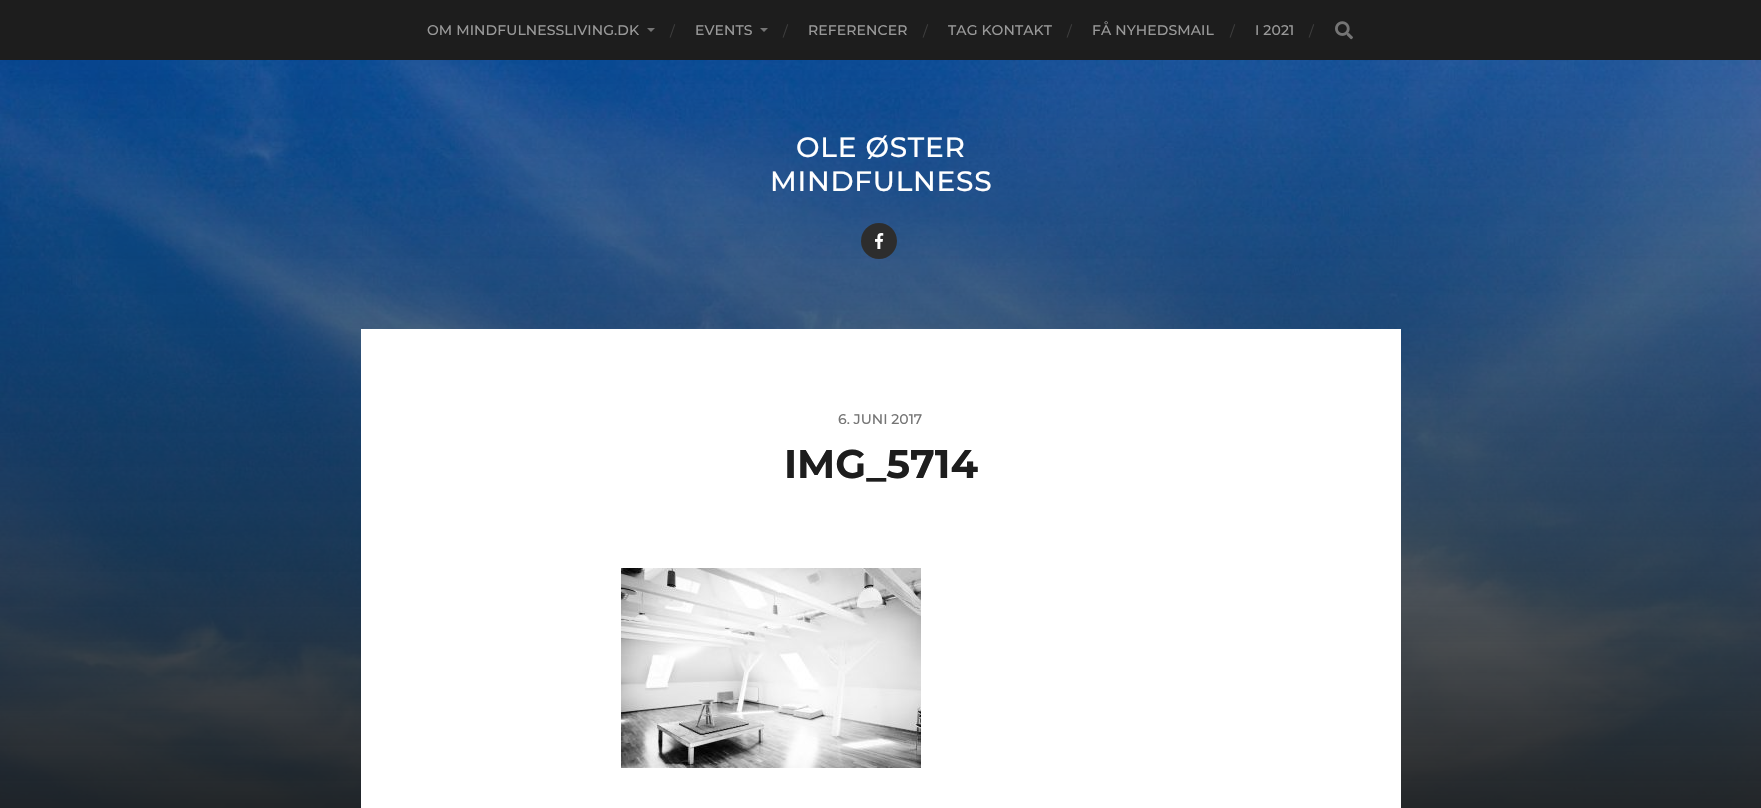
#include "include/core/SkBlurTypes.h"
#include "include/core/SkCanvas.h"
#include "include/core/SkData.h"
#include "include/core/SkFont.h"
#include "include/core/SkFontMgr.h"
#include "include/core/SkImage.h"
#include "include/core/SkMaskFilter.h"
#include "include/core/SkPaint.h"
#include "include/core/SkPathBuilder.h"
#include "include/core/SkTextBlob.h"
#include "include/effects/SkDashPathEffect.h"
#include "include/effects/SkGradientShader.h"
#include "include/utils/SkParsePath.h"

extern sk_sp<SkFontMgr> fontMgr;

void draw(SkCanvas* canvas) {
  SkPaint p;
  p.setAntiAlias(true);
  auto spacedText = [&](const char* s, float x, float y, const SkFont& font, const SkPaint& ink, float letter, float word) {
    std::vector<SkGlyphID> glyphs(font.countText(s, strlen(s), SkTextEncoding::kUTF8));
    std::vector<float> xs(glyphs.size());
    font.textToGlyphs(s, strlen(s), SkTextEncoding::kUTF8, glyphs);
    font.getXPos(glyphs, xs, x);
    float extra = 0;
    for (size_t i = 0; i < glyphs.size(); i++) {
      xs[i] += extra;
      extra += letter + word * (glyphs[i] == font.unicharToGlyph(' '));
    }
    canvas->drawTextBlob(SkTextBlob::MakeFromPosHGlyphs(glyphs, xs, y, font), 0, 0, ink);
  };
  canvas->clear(SkColorSetRGB(29, 29, 29));
  p.setColor(SkColorSetRGB(117, 117, 117));
  canvas->drawPath(SkPathBuilder().moveTo(647, 28).lineTo(655, 28).lineTo(651, 32).close().detach(), p);
  canvas->drawPath(SkPathBuilder().moveTo(760, 28).lineTo(768, 28).lineTo(764, 32).close().detach(), p);
  canvas->drawImageRect(SkImages::DeferredFromEncodedData(SkData::MakeFromFileName("images/1.png")), SkRect::MakeLTRB(1335, 21, 1353, 40), SkSamplingOptions());
  canvas->drawImageRect(SkImages::DeferredFromEncodedData(SkData::MakeFromFileName("images/2.png")), SkRect::MakeLTRB(0, 60, 1761, 808), SkSamplingOptions());
  p.setColor(SkColorSetRGB(45, 45, 45));
  canvas->drawCircle(879, 241, 18, p);
  canvas->drawImageRect(SkImages::DeferredFromEncodedData(SkData::MakeFromFileName("images/3.png")), SkRect::MakeLTRB(875, 233, 884, 249), SkSamplingOptions());
  p.setColor(SK_ColorWHITE);
  canvas->drawRect(SkRect::MakeLTRB(361, 329, 1401, 808), p);
  canvas->drawImageRect(SkImages::DeferredFromEncodedData(SkData::MakeFromFileName("images/4.png")), SkRect::MakeLTRB(621, 568, 921, 768), SkSamplingOptions());
  SkFont font1(fontMgr->matchFamilyStyle("Montserrat", SkFontStyle(100, SkFontStyle::kNormal_Width, SkFontStyle::kUpright_Slant)), 14);
  font1.setSubpixel(true);
  p.setColor(SkColorSetRGB(153, 153, 153));
  spacedText("OM MINDFULNESSLIVING.DK", 427, 35, font1, p, 0.1f, 0);
  SkFont font2(fontMgr->matchFamilyStyle("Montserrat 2", SkFontStyle(100, SkFontStyle::kNormal_Width, SkFontStyle::kUpright_Slant)), 14);
  font2.setSubpixel(true);
  p.setColor(SkColorSetRGB(61, 61, 61));
  canvas->drawString("/", 670, 36, font2, p);
  p.setColor(SkColorSetRGB(153, 153, 153));
  spacedText("EVENTS", 695, 35, font1, p, 0.1f, 0);
  p.setColor(SkColorSetRGB(61, 61, 61));
  canvas->drawString("/", 783, 36, font2, p);
  p.setColor(SkColorSetRGB(153, 153, 153));
  spacedText("REFERENCER", 808, 35, font1, p, 0.1f, 0);
  p.setColor(SkColorSetRGB(61, 61, 61));
  canvas->drawString("/", 923, 36, font2, p);
  p.setColor(SkColorSetRGB(153, 153, 153));
  spacedText("TAG KONTAKT", 948, 35, font1, p, 0.1f, 0);
  p.setColor(SkColorSetRGB(61, 61, 61));
  canvas->drawString("/", 1067, 36, font2, p);
  p.setColor(SkColorSetRGB(153, 153, 153));
  spacedText("FÅ NYHEDSMAIL", 1092, 35, font1, p, 0.1f, 0);
  p.setColor(SkColorSetRGB(61, 61, 61));
  canvas->drawString("/", 1230, 36, font2, p);
  p.setColor(SkColorSetRGB(153, 153, 153));
  spacedText("I 2021", 1255, 35, font1, p, 0.1f, 0);
  p.setColor(SkColorSetRGB(61, 61, 61));
  canvas->drawString("/", 1309, 36, font2, p);
  SkFont font3(fontMgr->matchFamilyStyle("Montserrat", SkFontStyle(100, SkFontStyle::kNormal_Width, SkFontStyle::kUpright_Slant)), 28);
  font3.setSubpixel(true);
  p.setColor(SK_ColorWHITE);
  spacedText("OLE ØSTER", 796, 157, font3, p, 0.75f, 0);
  spacedText("MINDFULNESS", 770, 191, font3, p, 0.75f, 0);
  p.setColor(SkColorSetRGB(117, 117, 117));
  canvas->drawString("6. JUNI 2017", 838, 424, font1, p);
  SkFont font4(fontMgr->matchFamilyStyle("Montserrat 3", SkFontStyle(100, SkFontStyle::kNormal_Width, SkFontStyle::kUpright_Slant)), 40);
  font4.setSubpixel(true);
  p.setColor(SkColorSetRGB(29, 29, 29));
  canvas->drawString("IMG_5714", 784, 478, font4, p);
}
